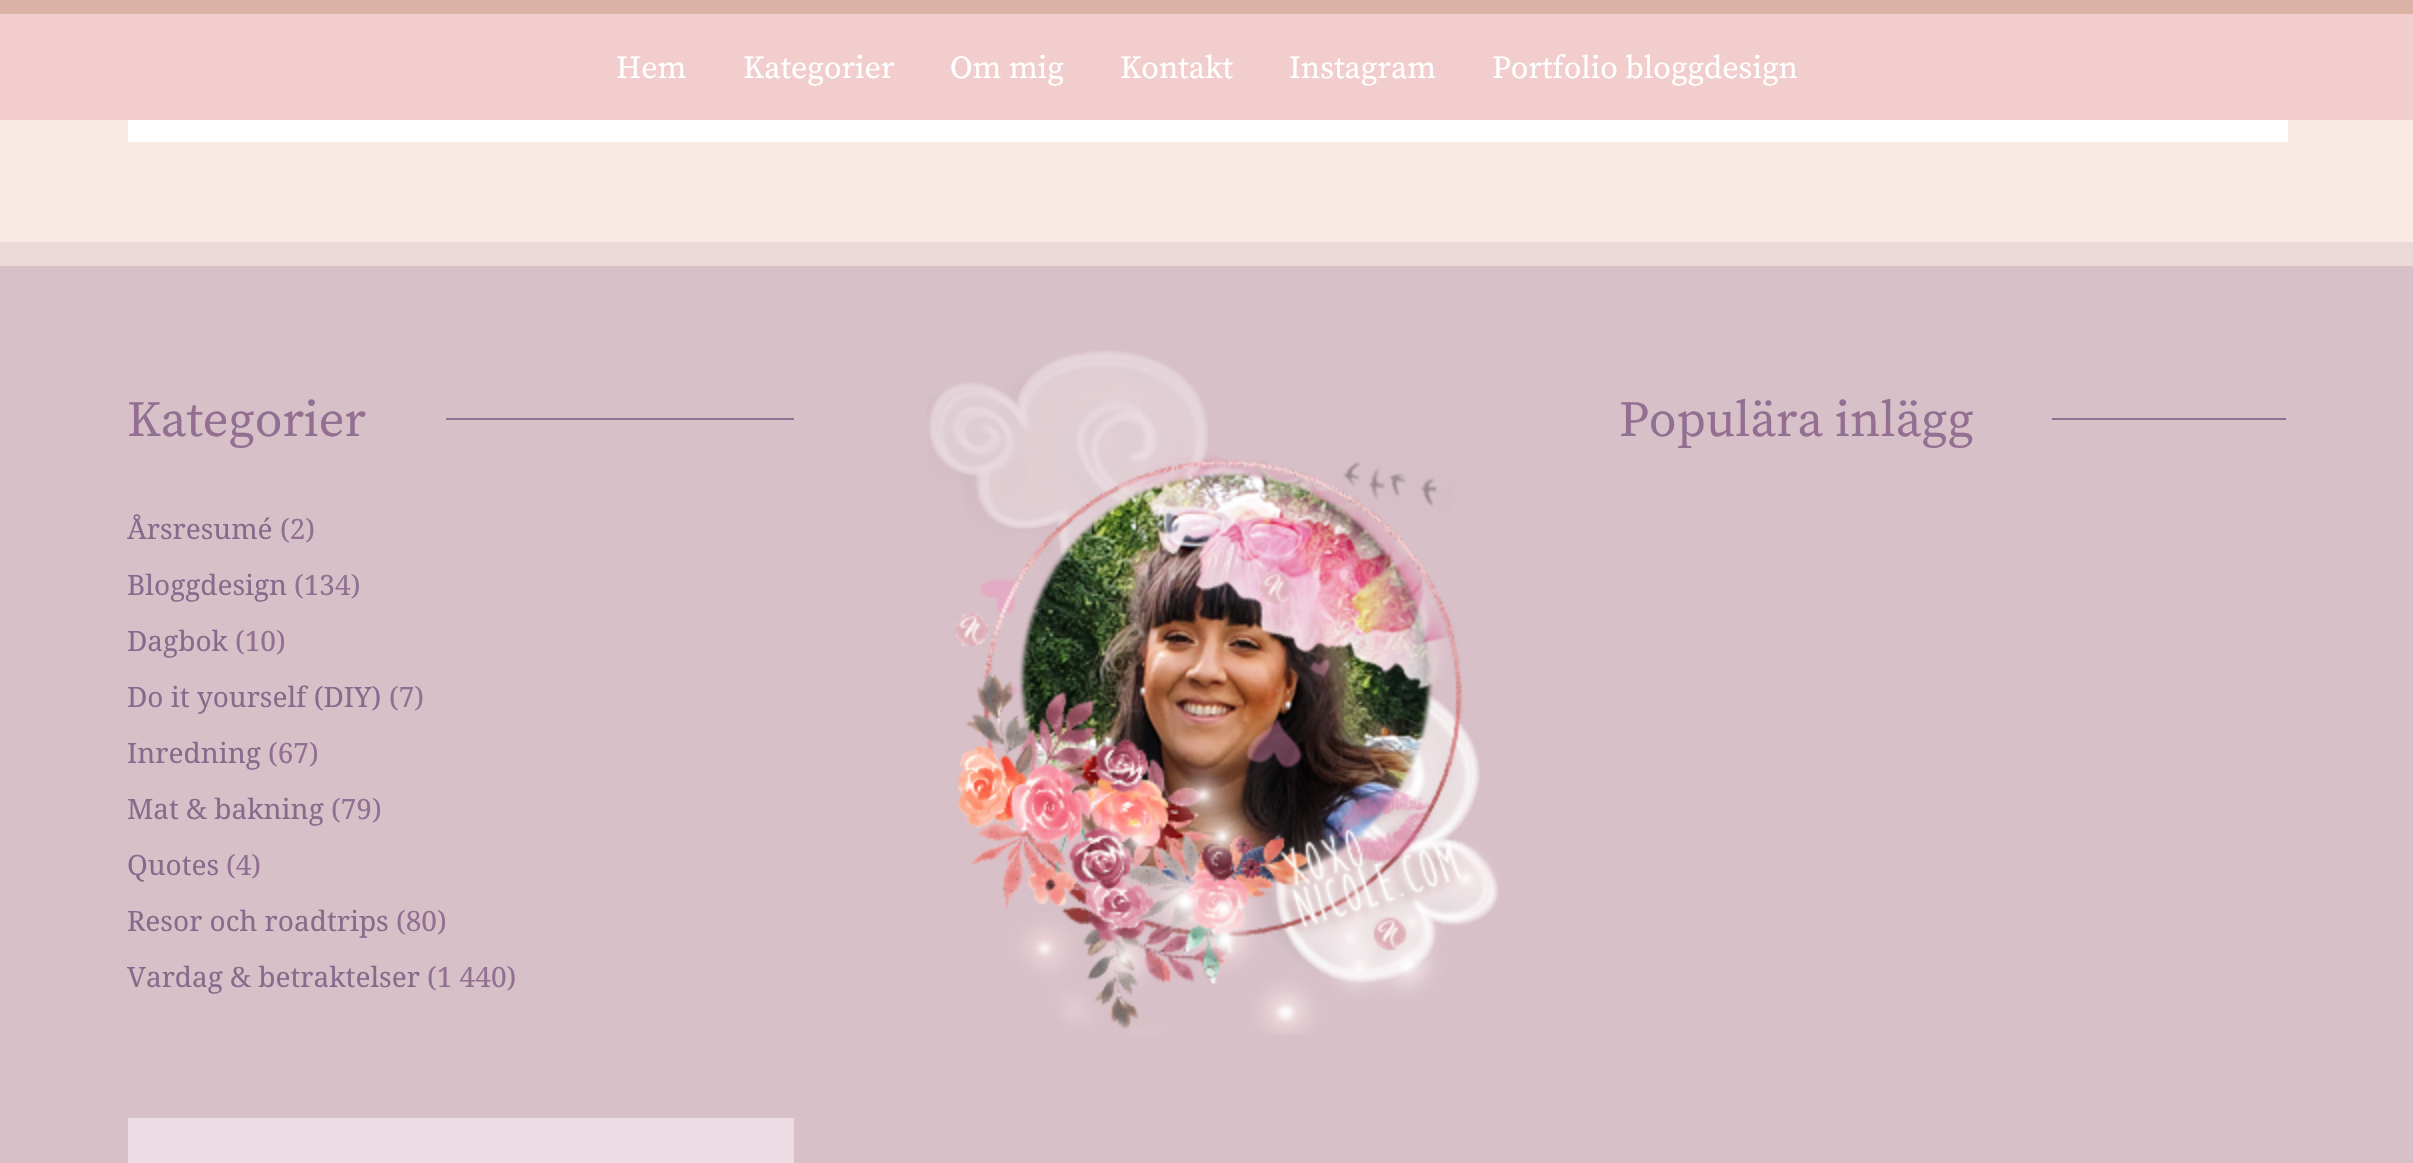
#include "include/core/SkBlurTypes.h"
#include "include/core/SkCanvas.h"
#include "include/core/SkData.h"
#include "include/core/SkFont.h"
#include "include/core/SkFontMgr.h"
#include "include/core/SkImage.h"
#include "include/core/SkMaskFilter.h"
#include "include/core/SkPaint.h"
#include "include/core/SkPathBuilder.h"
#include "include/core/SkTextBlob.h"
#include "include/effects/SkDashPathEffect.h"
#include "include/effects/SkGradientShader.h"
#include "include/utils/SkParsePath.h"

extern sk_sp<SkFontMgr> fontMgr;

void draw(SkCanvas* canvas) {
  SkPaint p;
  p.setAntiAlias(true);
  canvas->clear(SkColorSetRGB(249, 235, 227));
  p.setColor(SkColorSetRGB(242, 205, 205));
  canvas->drawRect(SkRect::MakeLTRB(0, 14, 2413, 120), p);
  p.setColor(SkColorSetRGB(219, 179, 166));
  canvas->drawRect(SkRect::MakeLTRB(0, 0, 2413, 14), p);
  p.setColor(SK_ColorWHITE);
  canvas->drawRect(SkRect::MakeLTRB(128, 120, 2288, 142), p);
  p.setColor(SkColorSetRGB(216, 192, 200));
  canvas->drawRect(SkRect::MakeLTRB(0, 266, 2413, 1163), p);
  p.setColor(SkColorSetRGB(235, 217, 215));
  canvas->drawRect(SkRect::MakeLTRB(0, 242, 2413, 266), p);
  p.setColor(SkColorSetRGB(147, 112, 146));
  canvas->drawRect(SkRect::MakeLTRB(446, 418, 794, 420), p);
  canvas->drawImageRect(SkImages::DeferredFromEncodedData(SkData::MakeFromFileName("images/1.png")), SkRect::MakeLTRB(927, 350, 1499, 1035), SkSamplingOptions());
  canvas->drawRect(SkRect::MakeLTRB(2052, 418, 2286, 420), p);
  p.setColor(SkColorSetRGB(237, 220, 227));
  canvas->drawRect(SkRect::MakeLTRB(128, 1118, 794, 1163), p);
  SkFont font1(fontMgr->matchFamilyStyle("Source Serif Pro", SkFontStyle::Normal()), 32);
  font1.setSubpixel(true);
  p.setColor(SK_ColorWHITE);
  canvas->drawString("Hem", 616, 78, font1, p);
  canvas->drawString("Kategorier", 743, 78, font1, p);
  canvas->drawString("Om mig", 950, 78, font1, p);
  canvas->drawString("Kontakt", 1120, 78, font1, p);
  canvas->drawString("Instagram", 1289, 78, font1, p);
  canvas->drawString("Portfolio bloggdesign", 1492, 78, font1, p);
  SkFont font2(fontMgr->matchFamilyStyle("Source Serif Pro", SkFontStyle::Normal()), 50.5f);
  font2.setSubpixel(true);
  p.setColor(SkColorSetRGB(147, 112, 146));
  canvas->drawString("Kategorier", 127, 436, font2, p);
  SkFont font3(fontMgr->matchFamilyStyle("Noto Serif", SkFontStyle::Normal()), 28);
  font3.setSubpixel(true);
  p.setColor(SkColorSetRGB(136, 106, 140));
  canvas->drawString("Årsresumé", 127, 539, font3, p);
  p.setColor(SkColorSetRGB(147, 112, 146));
  canvas->drawString("(2)", 280, 539, font3, p);
  p.setColor(SkColorSetRGB(136, 106, 140));
  canvas->drawString("Bloggdesign", 127, 595, font3, p);
  p.setColor(SkColorSetRGB(147, 112, 146));
  canvas->drawString("(134)", 294, 595, font3, p);
  p.setColor(SkColorSetRGB(136, 106, 140));
  canvas->drawString("Dagbok", 127, 651, font3, p);
  p.setColor(SkColorSetRGB(147, 112, 146));
  canvas->drawString("(10)", 235, 651, font3, p);
  p.setColor(SkColorSetRGB(136, 106, 140));
  canvas->drawString("Do it yourself (DIY)", 127, 707, font3, p);
  p.setColor(SkColorSetRGB(147, 112, 146));
  canvas->drawString("(7)", 389, 707, font3, p);
  p.setColor(SkColorSetRGB(136, 106, 140));
  canvas->drawString("Inredning", 127, 763, font3, p);
  p.setColor(SkColorSetRGB(147, 112, 146));
  canvas->drawString("(67)", 268, 763, font3, p);
  p.setColor(SkColorSetRGB(136, 106, 140));
  canvas->drawString("Mat & bakning", 127, 819, font3, p);
  p.setColor(SkColorSetRGB(147, 112, 146));
  canvas->drawString("(79)", 331, 819, font3, p);
  p.setColor(SkColorSetRGB(136, 106, 140));
  canvas->drawString("Quotes", 127, 875, font3, p);
  p.setColor(SkColorSetRGB(147, 112, 146));
  canvas->drawString("(4)", 226, 875, font3, p);
  p.setColor(SkColorSetRGB(136, 106, 140));
  canvas->drawString("Resor och roadtrips", 127, 931, font3, p);
  p.setColor(SkColorSetRGB(147, 112, 146));
  canvas->drawString("(80)", 396, 931, font3, p);
  p.setColor(SkColorSetRGB(136, 106, 140));
  canvas->drawString("Vardag & betraktelser", 127, 987, font3, p);
  p.setColor(SkColorSetRGB(147, 112, 146));
  canvas->drawString("(1 440)", 427, 987, font3, p);
  canvas->drawString("Populära inlägg", 1619, 436, font2, p);
}
